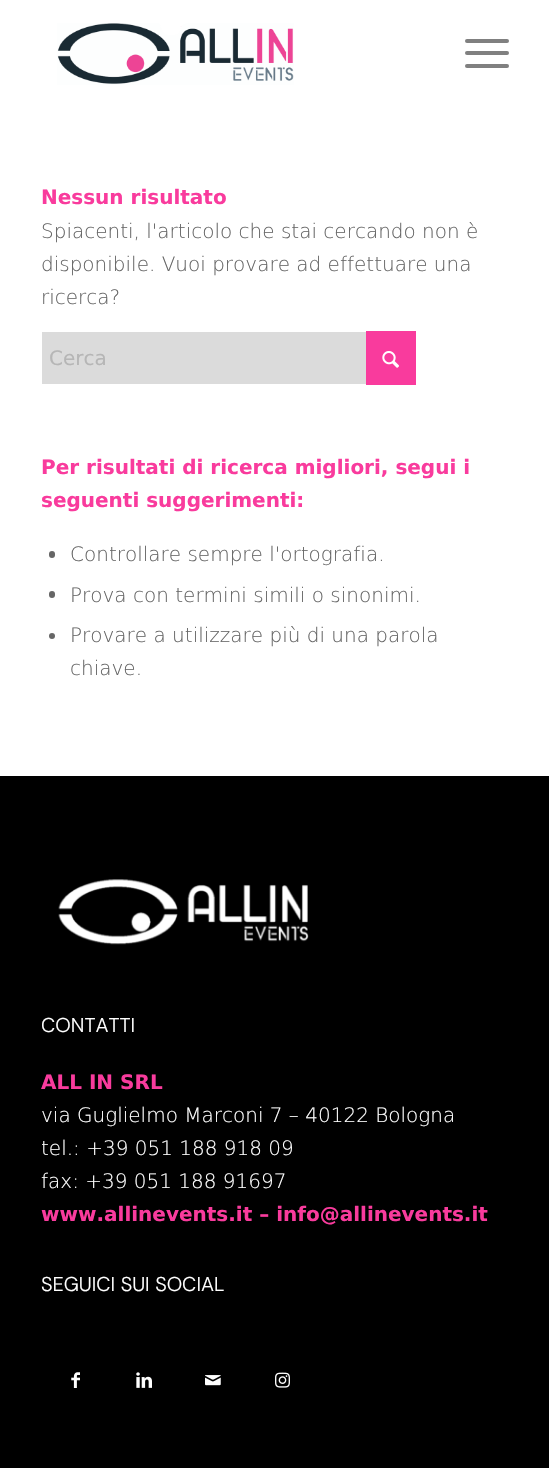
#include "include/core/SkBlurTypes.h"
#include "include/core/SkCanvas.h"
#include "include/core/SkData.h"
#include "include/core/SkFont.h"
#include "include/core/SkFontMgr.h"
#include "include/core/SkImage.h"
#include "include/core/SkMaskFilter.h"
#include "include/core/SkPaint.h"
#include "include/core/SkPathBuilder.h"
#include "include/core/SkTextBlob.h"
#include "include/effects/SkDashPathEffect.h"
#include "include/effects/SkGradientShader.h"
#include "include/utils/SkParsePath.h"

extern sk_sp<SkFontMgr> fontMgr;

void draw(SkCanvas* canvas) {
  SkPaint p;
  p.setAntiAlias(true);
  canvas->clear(SK_ColorWHITE);
  canvas->drawImageRect(SkImages::DeferredFromEncodedData(SkData::MakeFromFileName("images/1.png")), SkRect::MakeLTRB(57, 23, 294, 85), SkSamplingOptions());
  p.setColor(SkColorSetRGB(128, 128, 128));
  canvas->drawRoundRect(SkRect::MakeLTRB(465, 51, 509, 55), 2, 2, p);
  canvas->drawRoundRect(SkRect::MakeLTRB(465, 39, 509, 43), 2, 2, p);
  canvas->drawRoundRect(SkRect::MakeLTRB(465, 64, 509, 68), 2, 2, p);
  p.setColor(SkColorSetRGB(219, 219, 219));
  canvas->drawRect(SkRect::MakeLTRB(42, 332, 366, 384), p);
  p.setColor(SkColorSetRGB(249, 59, 157));
  canvas->drawRect(SkRect::MakeLTRB(366, 331, 416, 385), p);
  canvas->drawImageRect(SkImages::DeferredFromEncodedData(SkData::MakeFromFileName("images/2.png")), SkRect::MakeLTRB(382, 351, 399, 368), SkSamplingOptions());
  p.setColor(SkColorSetRGB(102, 102, 102));
  canvas->drawRoundRect(SkRect::MakeLTRB(49, 551, 55, 558), 3, 3, p);
  canvas->drawRoundRect(SkRect::MakeLTRB(49, 591, 55, 598), 3, 3, p);
  canvas->drawCircle(52, 636, 3, p);
  p.setColor(SK_ColorBLACK);
  canvas->drawRect(SkRect::MakeLTRB(0, 776, 549, 1468), p);
  canvas->drawImageRect(SkImages::DeferredFromEncodedData(SkData::MakeFromFileName("images/3.png")), SkRect::MakeLTRB(58, 879, 309, 945), SkSamplingOptions());
  canvas->drawImageRect(SkImages::DeferredFromEncodedData(SkData::MakeFromFileName("images/4.png")), SkRect::MakeLTRB(71, 1372, 80, 1388), SkSamplingOptions());
  canvas->drawImageRect(SkImages::DeferredFromEncodedData(SkData::MakeFromFileName("images/5.png")), SkRect::MakeLTRB(136, 1372, 152, 1388), SkSamplingOptions());
  canvas->drawImageRect(SkImages::DeferredFromEncodedData(SkData::MakeFromFileName("images/6.png")), SkRect::MakeLTRB(205, 1375, 221, 1386), SkSamplingOptions());
  canvas->drawImageRect(SkImages::DeferredFromEncodedData(SkData::MakeFromFileName("images/7.png")), SkRect::MakeLTRB(275, 1372, 290, 1388), SkSamplingOptions());
  SkFont font1(fontMgr->matchFamilyStyle("DejaVu Sans", SkFontStyle::Bold()), 20);
  font1.setSubpixel(true);
  p.setColor(SkColorSetRGB(249, 59, 157));
  canvas->drawString("Nessun risultato", 41, 204, font1, p);
  SkFont font2(fontMgr->matchFamilyStyle("DejaVu Sans", SkFontStyle(200, SkFontStyle::kNormal_Width, SkFontStyle::kUpright_Slant)), 20);
  font2.setSubpixel(true);
  p.setColor(SkColorSetRGB(102, 102, 102));
  canvas->drawString("Spiacenti, l'articolo che stai cercando non è", 41, 238, font2, p);
  canvas->drawString("disponibile. Vuoi provare ad effettuare una", 41, 271, font2, p);
  canvas->drawString("ricerca?", 41, 304, font2, p);
  SkFont font3(fontMgr->matchFamilyStyle("DejaVu Sans", SkFontStyle::Normal()), 20);
  font3.setSubpixel(true);
  p.setColor(SkColorSetRGB(182, 182, 182));
  canvas->drawString("Cerca", 49, 365, font3, p);
  p.setColor(SkColorSetRGB(249, 59, 157));
  canvas->drawString("Per risultati di ricerca migliori, segui i", 41, 474, font1, p);
  canvas->drawString("seguenti suggerimenti:", 41, 507, font1, p);
  p.setColor(SkColorSetRGB(102, 102, 102));
  canvas->drawString("Controllare sempre l'ortografia.", 70, 561, font2, p);
  canvas->drawString("Prova con termini simili o sinonimi.", 70, 602, font2, p);
  canvas->drawString("Provare a utilizzare più di una parola", 70, 642, font2, p);
  canvas->drawString("chiave.", 70, 675, font2, p);
  SkFont font4(fontMgr->matchFamilyStyle("DM Sans", SkFontStyle(300, SkFontStyle::kNormal_Width, SkFontStyle::kUpright_Slant)), 20);
  font4.setSubpixel(true);
  p.setColor(SK_ColorWHITE);
  canvas->drawString("CONTATTI", 41, 1032, font4, p);
  p.setColor(SkColorSetRGB(249, 59, 157));
  canvas->drawString("ALL IN SRL", 41, 1089, font1, p);
  p.setColor(SK_ColorWHITE);
  canvas->drawString("via Guglielmo Marconi 7 – 40122 Bologna", 41, 1122, font2, p);
  canvas->drawString("tel.: +39 051 188 918 09", 41, 1155, font2, p);
  canvas->drawString("fax: +39 051 188 91697", 41, 1188, font2, p);
  p.setColor(SkColorSetRGB(249, 59, 157));
  canvas->drawString("www.allinevents.it – info@allinevents.it", 41, 1221, font1, p);
  p.setColor(SK_ColorWHITE);
  canvas->drawString("SEGUICI SUI SOCIAL", 41, 1291, font4, p);
}
